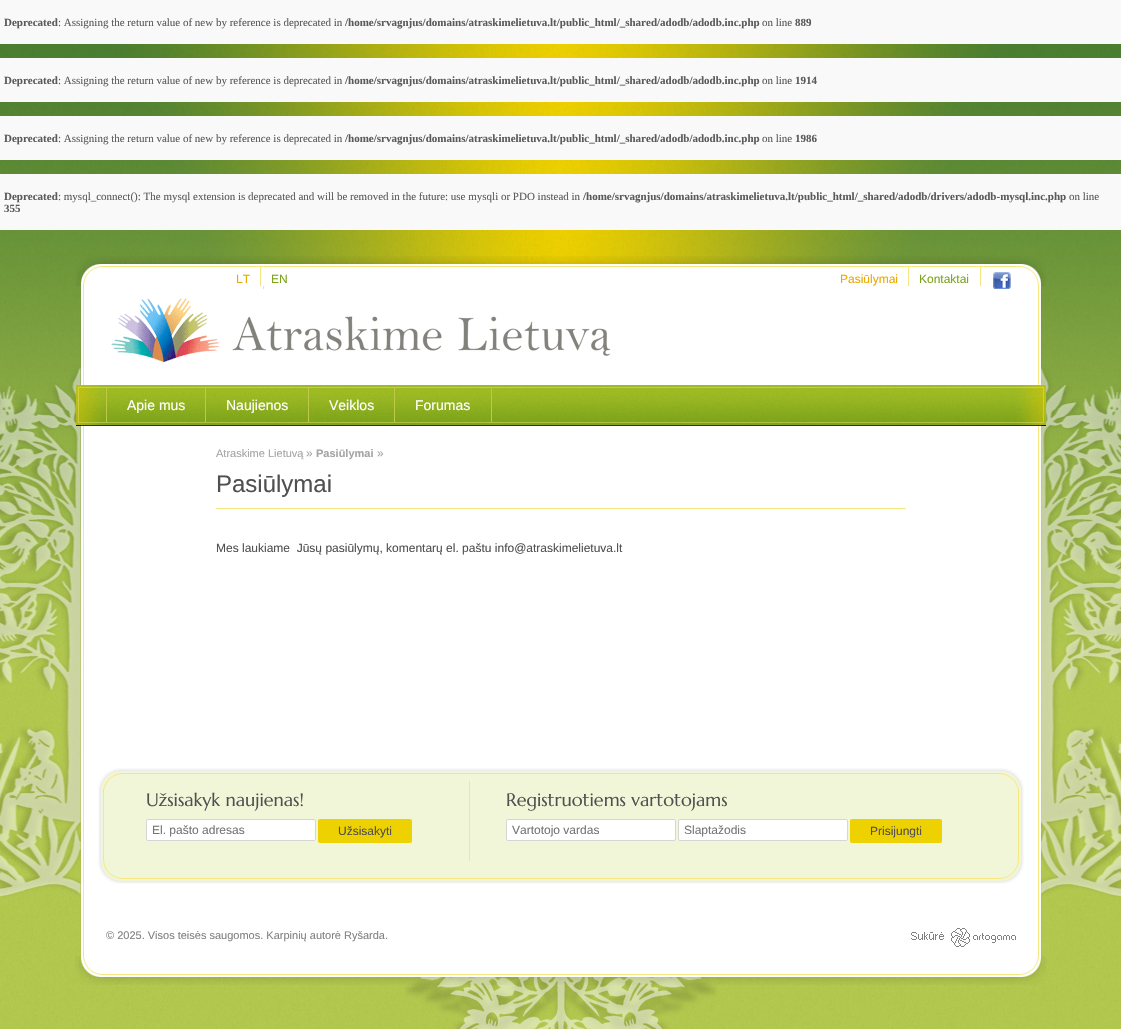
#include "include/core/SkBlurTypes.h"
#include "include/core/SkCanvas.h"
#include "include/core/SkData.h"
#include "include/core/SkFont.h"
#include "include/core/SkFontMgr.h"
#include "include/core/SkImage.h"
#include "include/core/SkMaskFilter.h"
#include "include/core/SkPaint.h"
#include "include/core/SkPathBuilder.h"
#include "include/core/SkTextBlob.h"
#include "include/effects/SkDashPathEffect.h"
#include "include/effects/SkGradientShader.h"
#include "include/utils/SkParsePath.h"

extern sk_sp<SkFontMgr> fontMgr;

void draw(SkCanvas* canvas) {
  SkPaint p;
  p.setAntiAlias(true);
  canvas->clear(SK_ColorWHITE);
  p.setColor(SkColorSetRGB(249, 249, 249));
  canvas->drawRect(SkRect::MakeLTRB(0, 0, 1121, 44), p);
  canvas->drawImageRect(SkImages::DeferredFromEncodedData(SkData::MakeFromFileName("images/1.png")), SkRect::MakeLTRB(0, 44, 1121, 1029), SkSamplingOptions());
  canvas->drawRect(SkRect::MakeLTRB(0, 58, 1121, 102), p);
  canvas->drawRect(SkRect::MakeLTRB(0, 116, 1121, 160), p);
  canvas->drawRect(SkRect::MakeLTRB(0, 174, 1121, 230), p);
  canvas->drawImageRect(SkImages::DeferredFromEncodedData(SkData::MakeFromFileName("images/2.png")), SkRect::MakeLTRB(0, 368, 1121, 897), SkSamplingOptions());
  canvas->drawImageRect(SkImages::DeferredFromEncodedData(SkData::MakeFromFileName("images/3.png")), SkRect::MakeLTRB(76, 256, 1046, 286), SkSamplingOptions());
  canvas->drawImageRect(SkImages::DeferredFromEncodedData(SkData::MakeFromFileName("images/4.png")), SkRect::MakeLTRB(80, 286, 1042, 956), SkSamplingOptions());
  canvas->drawImageRect(SkImages::DeferredFromEncodedData(SkData::MakeFromFileName("images/5.png")), SkRect::MakeLTRB(76, 385, 1046, 426), SkSamplingOptions());
  p.setColor(SkColorSetRGB(246, 232, 127));
  canvas->drawRect(SkRect::MakeLTRB(260, 267, 261, 286), p);
  canvas->drawRect(SkRect::MakeLTRB(908, 267, 909, 286), p);
  canvas->drawRect(SkRect::MakeLTRB(980, 267, 981, 286), p);
  canvas->drawImageRect(SkImages::DeferredFromEncodedData(SkData::MakeFromFileName("images/6.png")), SkRect::MakeLTRB(993, 272, 1011, 289), SkSamplingOptions());
  canvas->drawImageRect(SkImages::DeferredFromEncodedData(SkData::MakeFromFileName("images/7.png")), SkRect::MakeLTRB(111, 286, 610, 362), SkSamplingOptions());
  p.setColor(SkColorSetRGB(189, 201, 71));
  canvas->drawRect(SkRect::MakeLTRB(106, 388, 107, 422), p);
  canvas->drawRect(SkRect::MakeLTRB(205, 388, 206, 422), p);
  canvas->drawRect(SkRect::MakeLTRB(308, 388, 309, 422), p);
  canvas->drawRect(SkRect::MakeLTRB(394, 388, 395, 422), p);
  canvas->drawRect(SkRect::MakeLTRB(491, 388, 492, 422), p);
  p.setColor(SkColorSetRGB(246, 232, 127));
  canvas->drawRect(SkRect::MakeLTRB(216, 508, 906, 509), p);
  canvas->drawImageRect(SkImages::DeferredFromEncodedData(SkData::MakeFromFileName("images/8.png")), SkRect::MakeLTRB(98, 768, 1024, 884), SkSamplingOptions());
  p.setColor(SK_ColorWHITE);
  canvas->drawRoundRect(SkRect::MakeLTRB(146.5f, 819.5f, 315.5f, 840.5f), 1.5f, 1.5f, p);
  p.setStyle(SkPaint::kStroke_Style);
  p.setStrokeWidth(1);
  p.setColor(SkColorSetRGB(214, 214, 214));
  canvas->drawRoundRect(SkRect::MakeLTRB(146.5f, 819.5f, 315.5f, 840.5f), 1.5f, 1.5f, p);
  p.setStyle(SkPaint::kFill_Style);
  p.setColor(SkColorSetRGB(238, 209, 0));
  canvas->drawRoundRect(SkRect::MakeLTRB(318, 819, 412, 843), 2, 2, p);
  p.setColor(SK_ColorWHITE);
  canvas->drawRoundRect(SkRect::MakeLTRB(506.5f, 819.5f, 675.5f, 840.5f), 1.5f, 1.5f, p);
  p.setStyle(SkPaint::kStroke_Style);
  p.setColor(SkColorSetRGB(214, 214, 214));
  canvas->drawRoundRect(SkRect::MakeLTRB(506.5f, 819.5f, 675.5f, 840.5f), 1.5f, 1.5f, p);
  p.setStyle(SkPaint::kFill_Style);
  p.setColor(SK_ColorWHITE);
  canvas->drawRoundRect(SkRect::MakeLTRB(678.5f, 819.5f, 847.5f, 840.5f), 1.5f, 1.5f, p);
  p.setStyle(SkPaint::kStroke_Style);
  p.setColor(SkColorSetRGB(214, 214, 214));
  canvas->drawRoundRect(SkRect::MakeLTRB(678.5f, 819.5f, 847.5f, 840.5f), 1.5f, 1.5f, p);
  p.setStyle(SkPaint::kFill_Style);
  p.setColor(SkColorSetRGB(238, 209, 0));
  canvas->drawRoundRect(SkRect::MakeLTRB(850, 819, 942, 843), 2, 2, p);
  canvas->drawImageRect(SkImages::DeferredFromEncodedData(SkData::MakeFromFileName("images/9.png")), SkRect::MakeLTRB(911, 928, 1016, 947), SkSamplingOptions());
  canvas->drawImageRect(SkImages::DeferredFromEncodedData(SkData::MakeFromFileName("images/10.png")), SkRect::MakeLTRB(405, 977, 717, 1029), SkSamplingOptions());
  canvas->drawImageRect(SkImages::DeferredFromEncodedData(SkData::MakeFromFileName("images/11.png")), SkRect::MakeLTRB(75, 956, 1047, 985), SkSamplingOptions());
  SkFont font1(fontMgr->matchFamilyStyle("Liberation Serif", SkFontStyle::Bold()), 11);
  font1.setSubpixel(true);
  p.setColor(SkColorSetRGB(90, 90, 90));
  canvas->drawString("Deprecated", 4, 26, font1, p);
  SkFont font2(fontMgr->matchFamilyStyle("Liberation Serif", SkFontStyle::Normal()), 11);
  font2.setSubpixel(true);
  canvas->drawString(": Assigning the return value of new by reference is deprecated in", 58, 26, font2, p);
  canvas->drawString("/home/srvagnjus/domains/atraskimelietuva.lt/public_html/_shared/adodb/adodb.inc.php", 345, 26, font1, p);
  canvas->drawString("on line", 762, 26, font2, p);
  canvas->drawString("889", 795, 26, font1, p);
  canvas->drawString("Deprecated", 4, 84, font1, p);
  canvas->drawString(": Assigning the return value of new by reference is deprecated in", 58, 84, font2, p);
  canvas->drawString("/home/srvagnjus/domains/atraskimelietuva.lt/public_html/_shared/adodb/adodb.inc.php", 345, 84, font1, p);
  canvas->drawString("on line", 762, 84, font2, p);
  canvas->drawString("1914", 795, 84, font1, p);
  canvas->drawString("Deprecated", 4, 142, font1, p);
  canvas->drawString(": Assigning the return value of new by reference is deprecated in", 58, 142, font2, p);
  canvas->drawString("/home/srvagnjus/domains/atraskimelietuva.lt/public_html/_shared/adodb/adodb.inc.php", 345, 142, font1, p);
  canvas->drawString("on line", 762, 142, font2, p);
  canvas->drawString("1986", 795, 142, font1, p);
  canvas->drawString("Deprecated", 4, 200, font1, p);
  canvas->drawString(": mysql_connect(): The mysql extension is deprecated and will be removed in the future: use mysqli or PDO instead in", 58, 200, font2, p);
  canvas->drawString("/home/srvagnjus/domains/atraskimelietuva.lt/public_html/_shared/adodb/drivers/adodb-mysql.inc.php", 583, 200, font1, p);
  canvas->drawString("on line", 1069, 200, font2, p);
  canvas->drawString("355", 4, 212, font1, p);
  SkFont font3(fontMgr->matchFamilyStyle("Liberation Sans", SkFontStyle::Normal()), 12);
  font3.setSubpixel(true);
  p.setColor(SkColorSetRGB(235, 169, 0));
  canvas->drawString("LT", 236, 283, font3, p);
  p.setColor(SkColorSetRGB(125, 164, 27));
  canvas->drawString("EN", 271, 283, font3, p);
  p.setColor(SkColorSetRGB(235, 169, 0));
  canvas->drawString("Pasiūlymai", 840, 283, font3, p);
  p.setColor(SkColorSetRGB(125, 164, 27));
  canvas->drawString("Kontaktai", 919, 283, font3, p);
  SkFont font4(fontMgr->matchFamilyStyle("Liberation Sans", SkFontStyle::Normal()), 14);
  font4.setSubpixel(true);
  p.setColor(SK_ColorWHITE);
  canvas->drawString("Apie mus", 127, 410, font4, p);
  canvas->drawString("Naujienos", 226, 410, font4, p);
  canvas->drawString("Veiklos", 329, 410, font4, p);
  canvas->drawString("Forumas", 415, 410, font4, p);
  SkFont font5(fontMgr->matchFamilyStyle("Liberation Sans", SkFontStyle::Normal()), 11);
  font5.setSubpixel(true);
  p.setColor(SkColorSetRGB(165, 165, 165));
  canvas->drawString("Atraskime Lietuvą", 216, 457, font5, p);
  canvas->drawString("»", 306, 457, font3, p);
  SkFont font6(fontMgr->matchFamilyStyle("Liberation Sans", SkFontStyle::Bold()), 11);
  font6.setSubpixel(true);
  canvas->drawString("Pasiūlymai", 316, 457, font6, p);
  canvas->drawString("»", 377, 457, font3, p);
  SkFont font7(fontMgr->matchFamilyStyle("Liberation Sans", SkFontStyle::Normal()), 24);
  font7.setSubpixel(true);
  p.setColor(SkColorSetRGB(80, 80, 80));
  canvas->drawString("Pasiūlymai", 216, 492, font7, p);
  canvas->drawString("Mes laukiame  Jūsų pasiūlymų, komentarų el. paštu info@atraskimelietuva.lt", 216, 552, font3, p);
  SkFont font8(fontMgr->matchFamilyStyle("Marcellus", SkFontStyle::Normal()), 18);
  font8.setSubpixel(true);
  canvas->drawString("Užsisakyk naujienas!", 146, 806, font8, p);
  p.setColor(SkColorSetRGB(117, 117, 117));
  canvas->drawString("El. pašto adresas", 152, 834, font3, p);
  p.setColor(SkColorSetRGB(80, 80, 80));
  canvas->drawString("Užsisakyti", 338, 835, font3, p);
  canvas->drawString("Registruotiems vartotojams", 506, 806, font8, p);
  p.setColor(SkColorSetRGB(117, 117, 117));
  canvas->drawString("Vartotojo vardas", 512, 834, font3, p);
  canvas->drawString("Slaptažodis", 684, 834, font3, p);
  p.setColor(SkColorSetRGB(80, 80, 80));
  canvas->drawString("Prisijungti", 870, 835, font3, p);
  p.setColor(SkColorSetRGB(129, 129, 129));
  canvas->drawString("© 2025. Visos teisės saugomos. Karpinių autorė Ryšarda.", 106, 939, font5, p);
}
